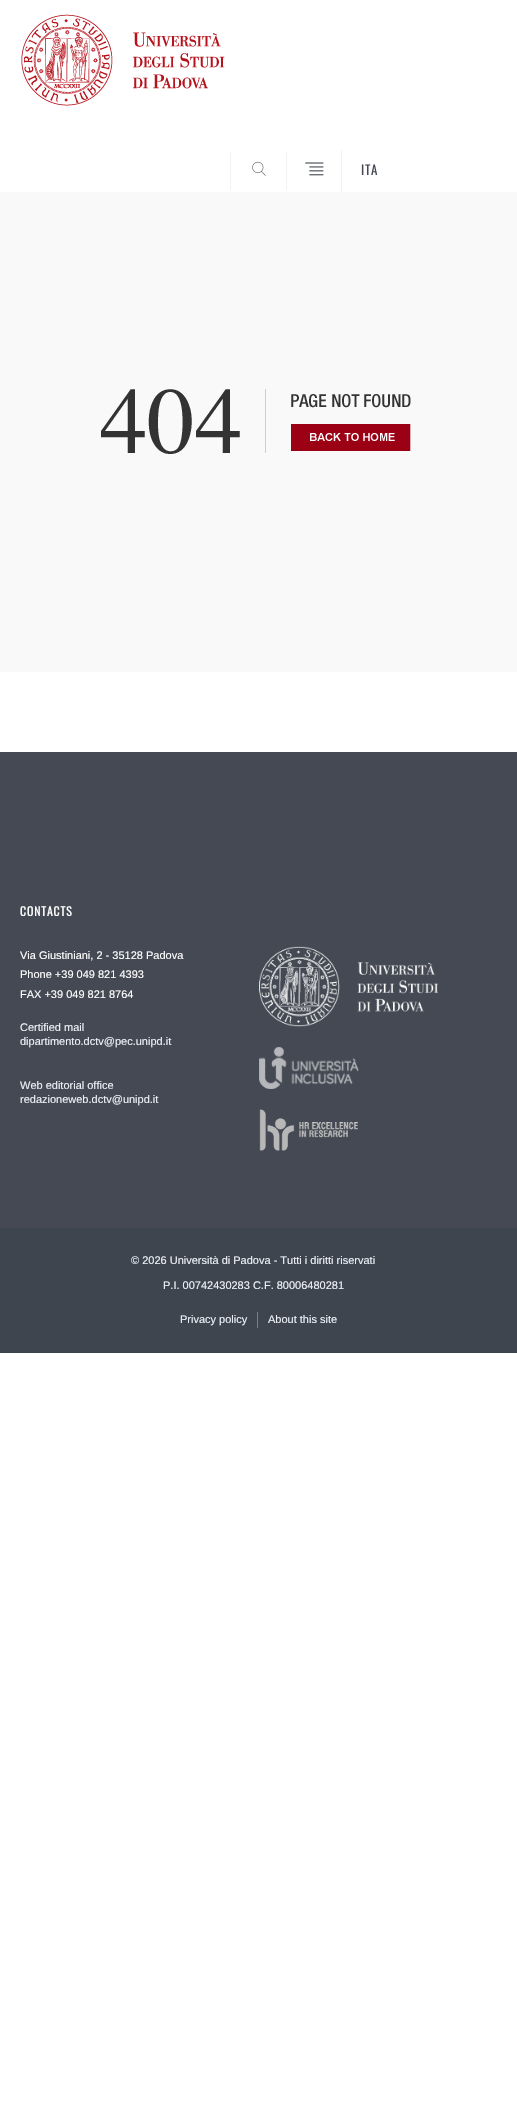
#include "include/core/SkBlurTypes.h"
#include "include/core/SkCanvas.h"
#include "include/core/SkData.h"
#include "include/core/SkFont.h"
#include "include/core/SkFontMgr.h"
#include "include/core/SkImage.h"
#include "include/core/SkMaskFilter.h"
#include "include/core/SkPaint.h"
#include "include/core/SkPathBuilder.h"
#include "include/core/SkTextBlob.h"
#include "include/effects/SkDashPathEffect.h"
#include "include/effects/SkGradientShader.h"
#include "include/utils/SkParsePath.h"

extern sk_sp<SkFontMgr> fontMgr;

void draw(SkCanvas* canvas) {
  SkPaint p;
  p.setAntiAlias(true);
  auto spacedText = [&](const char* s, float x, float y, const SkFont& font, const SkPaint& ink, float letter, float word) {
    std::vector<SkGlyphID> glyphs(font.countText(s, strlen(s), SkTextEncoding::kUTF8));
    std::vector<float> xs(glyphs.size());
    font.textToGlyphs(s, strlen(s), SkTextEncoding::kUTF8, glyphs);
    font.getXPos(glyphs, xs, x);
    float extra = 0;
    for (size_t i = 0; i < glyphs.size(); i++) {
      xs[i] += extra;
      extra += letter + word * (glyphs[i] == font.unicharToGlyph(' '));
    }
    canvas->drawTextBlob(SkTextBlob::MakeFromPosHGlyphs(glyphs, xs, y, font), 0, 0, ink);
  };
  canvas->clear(SK_ColorWHITE);
  canvas->drawImageRect(SkImages::DeferredFromEncodedData(SkData::MakeFromFileName("images/1.png")), SkRect::MakeLTRB(21, 14, 225, 106), SkSamplingOptions());
  p.setColor(SkColorSetRGB(242, 242, 242));
  canvas->drawRect(SkRect::MakeLTRB(230, 152, 231, 190), p);
  canvas->drawImageRect(SkImages::DeferredFromEncodedData(SkData::MakeFromFileName("images/2.png")), SkRect::MakeLTRB(252, 161, 266, 176), SkSamplingOptions());
  canvas->drawRect(SkRect::MakeLTRB(286, 152, 287, 190), p);
  canvas->drawImageRect(SkImages::DeferredFromEncodedData(SkData::MakeFromFileName("images/3.png")), SkRect::MakeLTRB(305, 162, 324, 176), SkSamplingOptions());
  canvas->drawRect(SkRect::MakeLTRB(341, 150, 342, 192), p);
  p.setColor(SkColorSetRGB(249, 249, 249));
  canvas->drawRect(SkRect::MakeLTRB(0, 192, 517, 672), p);
  canvas->drawImageRect(SkImages::DeferredFromEncodedData(SkData::MakeFromFileName("images/4.png")), SkRect::MakeLTRB(101, 389, 411, 455), SkSamplingOptions());
  p.setColor(SkColorSetRGB(69, 73, 83));
  canvas->drawRect(SkRect::MakeLTRB(0, 752, 517, 1228), p);
  canvas->drawImageRect(SkImages::DeferredFromEncodedData(SkData::MakeFromFileName("images/5.png")), SkRect::MakeLTRB(259, 946, 438, 1027), SkSamplingOptions());
  canvas->drawImageRect(SkImages::DeferredFromEncodedData(SkData::MakeFromFileName("images/6.png")), SkRect::MakeLTRB(259, 1047, 359, 1089), SkSamplingOptions());
  canvas->drawImageRect(SkImages::DeferredFromEncodedData(SkData::MakeFromFileName("images/7.png")), SkRect::MakeLTRB(259, 1109, 358, 1151), SkSamplingOptions());
  p.setColor(SkColorSetRGB(62, 69, 79));
  canvas->drawRect(SkRect::MakeLTRB(0, 1228, 517, 1353), p);
  p.setColor(SkColorSetRGB(123, 127, 136));
  canvas->drawRect(SkRect::MakeLTRB(257, 1312, 258, 1328), p);
  SkFont font1(fontMgr->matchFamilyStyle("Oswald", SkFontStyle::Normal()), 13);
  font1.setSubpixel(true);
  p.setColor(SkColorSetRGB(69, 73, 83));
  spacedText("ITA", 361, 175, font1, p, 0.75f, 0);
  SkFont font2(fontMgr->matchFamilyStyle("Oswald", SkFontStyle::Normal()), 12);
  font2.setSubpixel(true);
  p.setColor(SK_ColorWHITE);
  spacedText("CONTACTS", 20, 916, font2, p, 0.75f, 0);
  SkFont font3(fontMgr->matchFamilyStyle("Liberation Sans", SkFontStyle::Normal()), 11);
  font3.setSubpixel(true);
  canvas->drawString("Via Giustiniani, 2 - 35128 Padova", 20, 959, font3, p);
  canvas->drawString("Phone +39 049 821 4393", 20, 978, font3, p);
  canvas->drawString("FAX +39 049 821 8764", 20, 998, font3, p);
  p.setColor(SkColorSetRGB(236, 242, 248));
  canvas->drawString("Certified mail", 20, 1031, font3, p);
  canvas->drawString("dipartimento.dctv@pec.unipd.it", 20, 1045, font3, p);
  canvas->drawString("Web editorial office", 20, 1089, font3, p);
  canvas->drawString("redazioneweb.dctv@unipd.it", 20, 1103, font3, p);
  canvas->drawString("© 2026 Università di Padova - Tutti i diritti riservati", 131, 1264, font3, p);
  canvas->drawString("P.I. 00742430283 C.F. 80006480281", 163, 1289, font3, p);
  canvas->drawString("Privacy policy", 180, 1323, font3, p);
  canvas->drawString("About this site", 268, 1323, font3, p);
}
